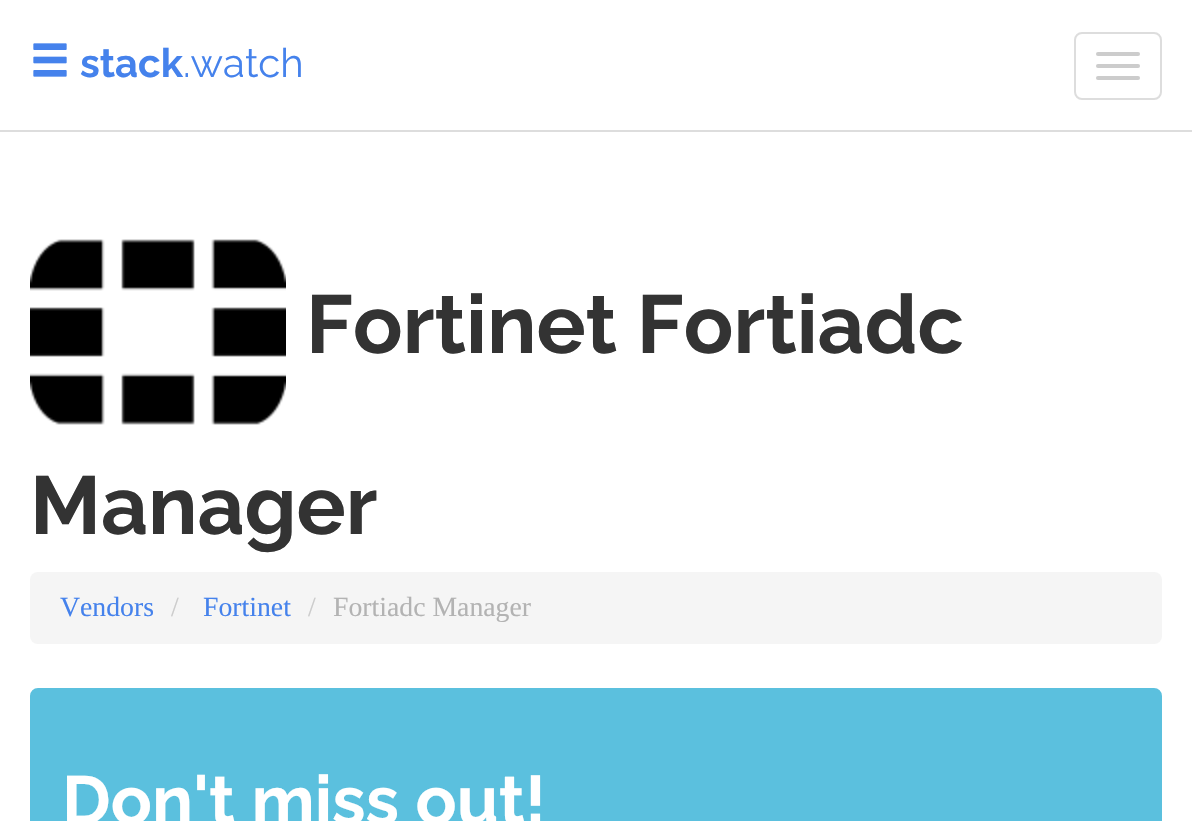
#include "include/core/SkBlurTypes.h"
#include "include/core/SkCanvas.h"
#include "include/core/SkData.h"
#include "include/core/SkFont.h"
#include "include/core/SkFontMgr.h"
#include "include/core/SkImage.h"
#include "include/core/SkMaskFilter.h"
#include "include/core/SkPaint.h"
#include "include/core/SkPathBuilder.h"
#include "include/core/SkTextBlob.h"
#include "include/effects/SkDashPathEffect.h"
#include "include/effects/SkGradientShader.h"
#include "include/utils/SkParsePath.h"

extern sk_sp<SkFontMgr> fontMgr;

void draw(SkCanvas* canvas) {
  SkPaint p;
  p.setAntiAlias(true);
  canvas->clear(SK_ColorWHITE);
  p.setColor(SkColorSetRGB(221, 221, 221));
  canvas->drawRect(SkRect::MakeLTRB(0, 130, 1192, 132), p);
  canvas->drawImageRect(SkImages::DeferredFromEncodedData(SkData::MakeFromFileName("images/1.png")), SkRect::MakeLTRB(33, 43, 67, 77), SkSamplingOptions());
  p.setStyle(SkPaint::kStroke_Style);
  p.setStrokeWidth(2);
  canvas->drawRoundRect(SkRect::MakeLTRB(1075, 33, 1161, 99), 7, 7, p);
  p.setStyle(SkPaint::kFill_Style);
  p.setColor(SkColorSetRGB(204, 204, 204));
  canvas->drawRoundRect(SkRect::MakeLTRB(1096, 52, 1140, 56), 2, 2, p);
  canvas->drawRoundRect(SkRect::MakeLTRB(1096, 64, 1140, 68), 2, 2, p);
  canvas->drawRoundRect(SkRect::MakeLTRB(1096, 76, 1140, 80), 2, 2, p);
  canvas->drawImageRect(SkImages::DeferredFromEncodedData(SkData::MakeFromFileName("images/2.png")), SkRect::MakeLTRB(30, 239, 286, 425), SkSamplingOptions());
  p.setColor(SkColorSetRGB(245, 245, 245));
  canvas->drawRoundRect(SkRect::MakeLTRB(30, 572, 1162, 644), 8, 8, p);
  p.setColor(SkColorSetRGB(91, 192, 222));
  canvas->drawRoundRect(SkRect::MakeLTRB(31, 689, 1161, 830), 7, 7, p);
  p.setStyle(SkPaint::kStroke_Style);
  canvas->drawRoundRect(SkRect::MakeLTRB(31, 689, 1161, 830), 7, 7, p);
  SkFont font1(fontMgr->matchFamilyStyle("Raleway", SkFontStyle::Bold()), 40);
  font1.setSubpixel(true);
  p.setStyle(SkPaint::kFill_Style);
  p.setColor(SkColorSetRGB(69, 130, 236));
  canvas->drawString("stack", 80, 77, font1, p);
  SkFont font2(fontMgr->matchFamilyStyle("Raleway", SkFontStyle::Normal()), 40);
  font2.setSubpixel(true);
  canvas->drawString(".watch", 183, 77, font2, p);
  SkFont font3(fontMgr->matchFamilyStyle("Raleway", SkFontStyle::Bold()), 82);
  font3.setSubpixel(true);
  p.setColor(SkColorSetRGB(51, 51, 51));
  canvas->drawString("Fortinet Fortiadc", 306, 353, font3, p);
  canvas->drawString("Manager", 30, 534, font3, p);
  SkFont font4(fontMgr->matchFamilyStyle("Liberation Serif", SkFontStyle::Normal()), 27.75f);
  font4.setSubpixel(true);
  p.setColor(SkColorSetRGB(69, 130, 236));
  canvas->drawString("Vendors", 60, 616, font4, p);
  p.setColor(SkColorSetRGB(204, 204, 204));
  canvas->drawString("/", 171, 616, font4, p);
  p.setColor(SkColorSetRGB(69, 130, 236));
  canvas->drawString("Fortinet", 203, 616, font4, p);
  p.setColor(SkColorSetRGB(204, 204, 204));
  canvas->drawString("/", 308, 616, font4, p);
  p.setColor(SkColorSetRGB(179, 179, 179));
  canvas->drawString("Fortiadc Manager", 333, 616, font4, p);
  SkFont font5(fontMgr->matchFamilyStyle("Raleway", SkFontStyle::Bold()), 68);
  font5.setSubpixel(true);
  p.setColor(SK_ColorWHITE);
  canvas->drawString("Don't miss out!", 62, 824, font5, p);
}
